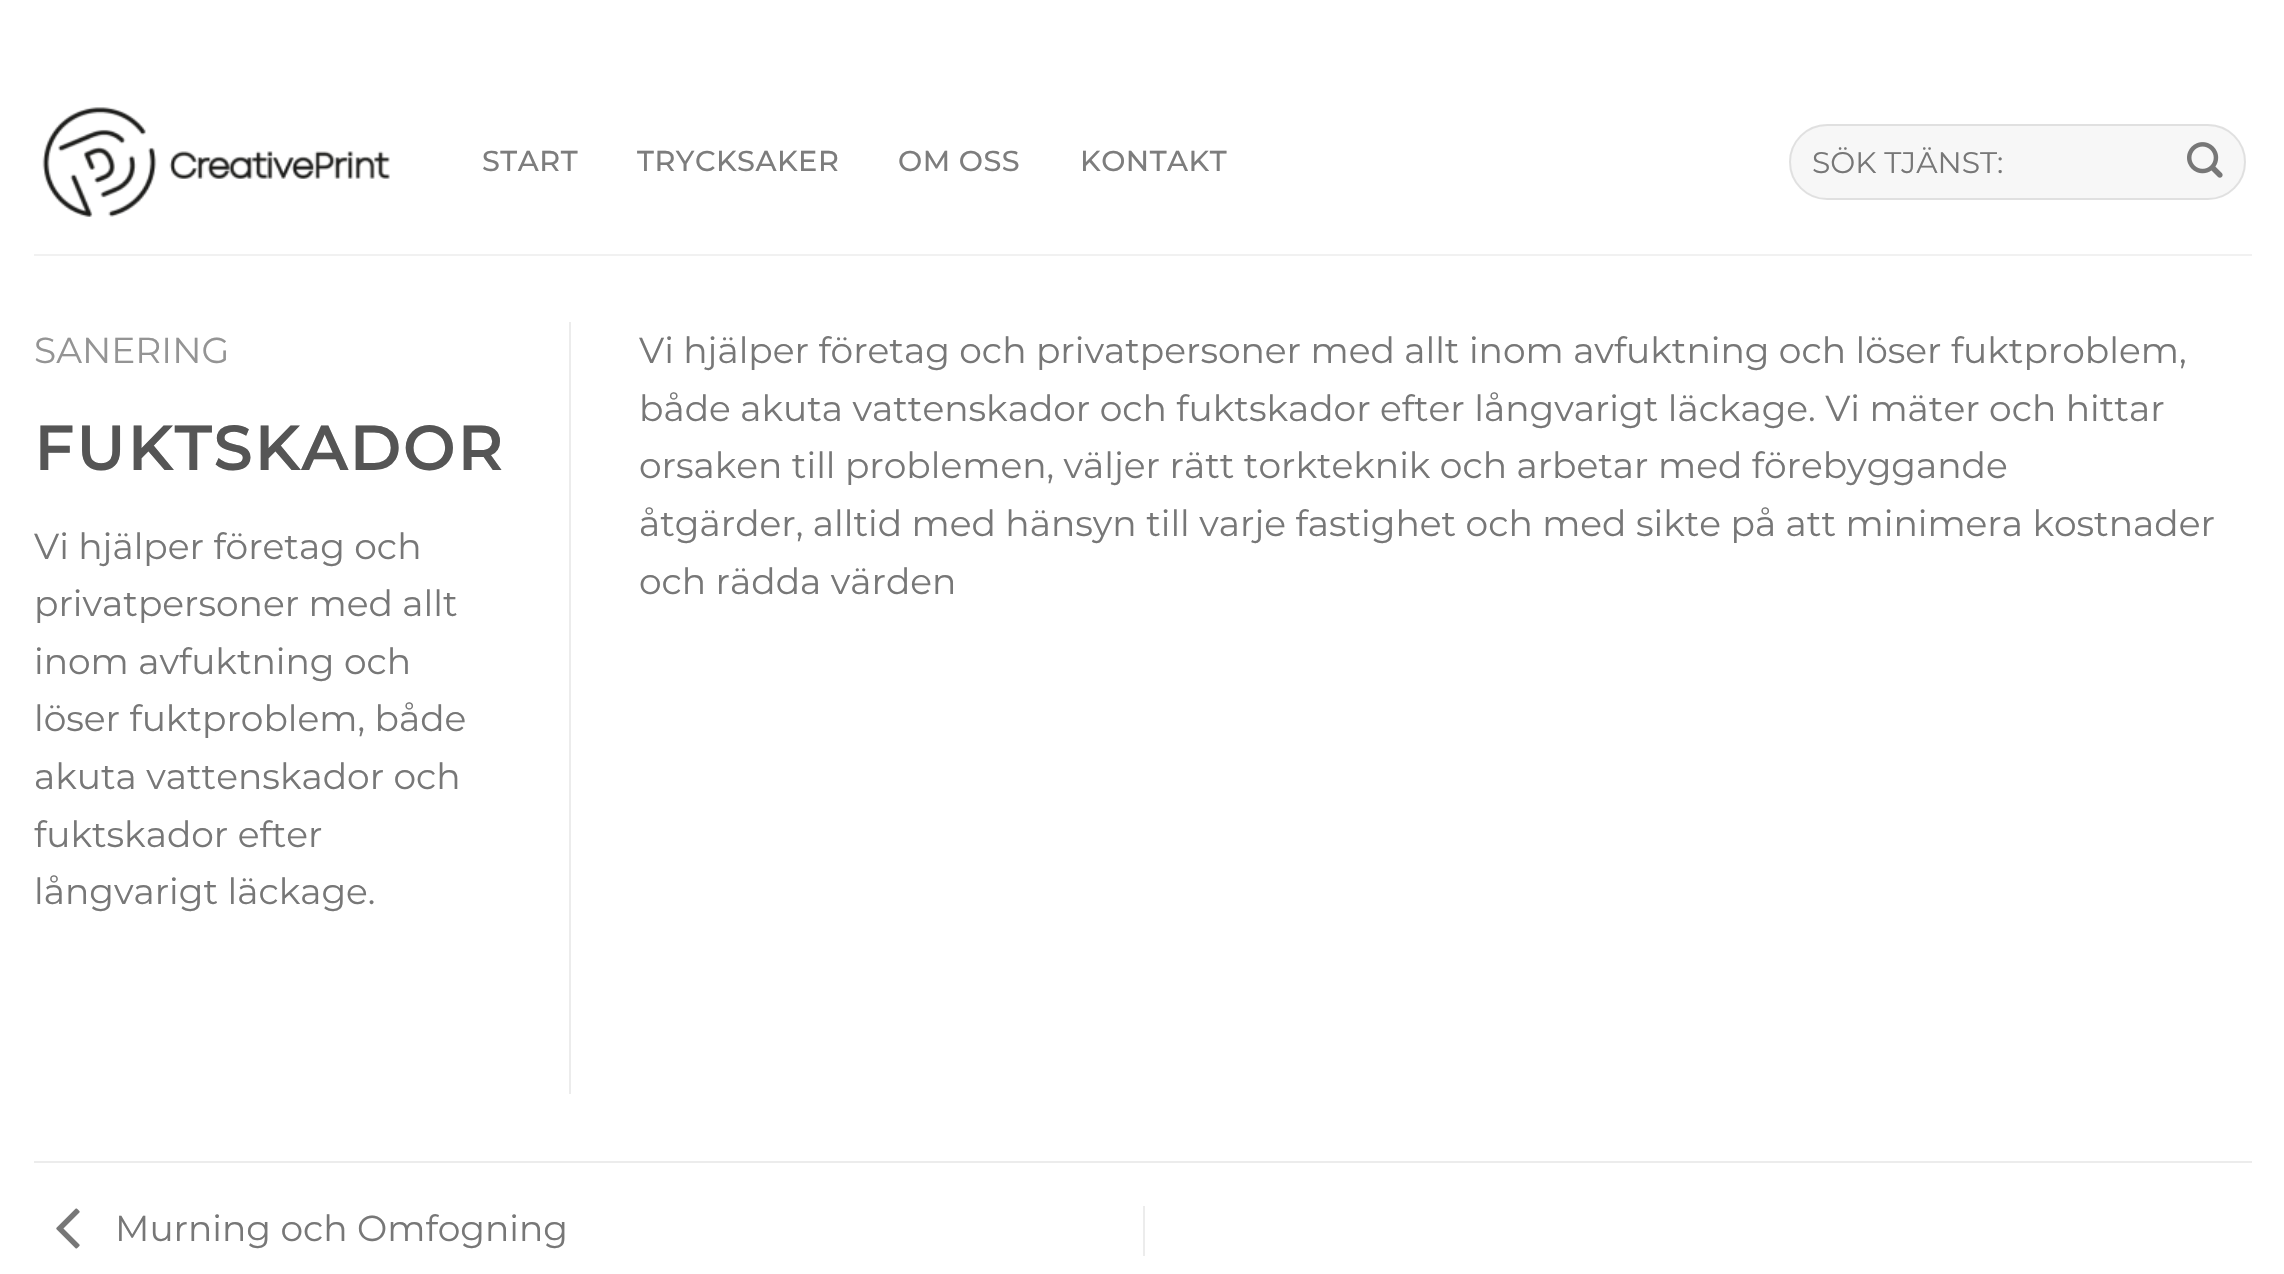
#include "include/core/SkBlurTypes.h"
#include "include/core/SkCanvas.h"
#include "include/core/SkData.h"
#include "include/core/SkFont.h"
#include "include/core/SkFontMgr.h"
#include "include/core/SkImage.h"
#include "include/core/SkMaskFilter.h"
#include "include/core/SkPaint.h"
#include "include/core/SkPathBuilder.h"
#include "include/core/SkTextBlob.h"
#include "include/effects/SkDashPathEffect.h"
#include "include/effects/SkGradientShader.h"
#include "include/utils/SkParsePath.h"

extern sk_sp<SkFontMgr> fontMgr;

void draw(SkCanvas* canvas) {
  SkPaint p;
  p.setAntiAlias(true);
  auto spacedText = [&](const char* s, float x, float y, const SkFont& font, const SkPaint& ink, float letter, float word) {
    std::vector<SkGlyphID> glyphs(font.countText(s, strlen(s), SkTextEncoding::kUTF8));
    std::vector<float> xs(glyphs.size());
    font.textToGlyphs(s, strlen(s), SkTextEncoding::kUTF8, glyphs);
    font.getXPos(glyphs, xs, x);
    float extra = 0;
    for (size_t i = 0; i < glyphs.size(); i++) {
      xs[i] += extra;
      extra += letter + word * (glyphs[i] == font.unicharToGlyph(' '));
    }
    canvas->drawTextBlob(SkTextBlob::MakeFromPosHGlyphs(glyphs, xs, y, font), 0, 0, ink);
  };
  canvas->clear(SK_ColorWHITE);
  canvas->drawImageRect(SkImages::DeferredFromEncodedData(SkData::MakeFromFileName("images/1.png")), SkRect::MakeLTRB(42, 107, 390, 217), SkSamplingOptions());
  p.setColor(SkColorSetRGB(247, 247, 247));
  canvas->drawRoundRect(SkRect::MakeLTRB(1789, 124, 2246, 200), 38, 38, p);
  p.setStyle(SkPaint::kStroke_Style);
  p.setStrokeWidth(2);
  p.setColor(SkColorSetARGB(23, 0, 0, 0));
  canvas->drawRoundRect(SkRect::MakeLTRB(1790, 125, 2245, 199), 37, 37, p);
  canvas->drawImageRect(SkImages::DeferredFromEncodedData(SkData::MakeFromFileName("images/2.png")), SkRect::MakeLTRB(2187, 142, 2223, 178), SkSamplingOptions());
  p.setStyle(SkPaint::kFill_Style);
  p.setColor(SkColorSetRGB(241, 241, 241));
  canvas->drawRect(SkRect::MakeLTRB(34, 254, 2252, 256), p);
  p.setColor(SkColorSetRGB(236, 236, 236));
  canvas->drawRect(SkRect::MakeLTRB(569, 322, 571, 1094), p);
  canvas->drawRect(SkRect::MakeLTRB(34, 1161, 2252, 1163), p);
  canvas->drawImageRect(SkImages::DeferredFromEncodedData(SkData::MakeFromFileName("images/3.png")), SkRect::MakeLTRB(56, 1208, 80, 1249), SkSamplingOptions());
  canvas->drawRect(SkRect::MakeLTRB(1143, 1206, 1145, 1256), p);
  SkFont font1(fontMgr->matchFamilyStyle("Montserrat", SkFontStyle(500, SkFontStyle::kNormal_Width, SkFontStyle::kUpright_Slant)), 28.75f);
  font1.setSubpixel(true);
  p.setColor(SkColorSetRGB(125, 125, 125));
  spacedText("START", 482, 171, font1, p, 0.5f, 0);
  spacedText("TRYCKSAKER", 637, 171, font1, p, 0.5f, 0);
  spacedText("OM OSS", 898, 171, font1, p, 0.5f, 0);
  spacedText("KONTAKT", 1080, 171, font1, p, 0.5f, 0);
  SkFont font2(fontMgr->matchFamilyStyle("Montserrat", SkFontStyle::Normal()), 29.75f);
  font2.setSubpixel(true);
  p.setColor(SkColorSetRGB(119, 119, 119));
  canvas->drawString("SÖK TJÄNST:", 1812, 173, font2, p);
  SkFont font3(fontMgr->matchFamilyStyle("Montserrat", SkFontStyle::Normal()), 36);
  font3.setSubpixel(true);
  p.setColor(SkColorSetRGB(148, 148, 148));
  canvas->drawString("SANERING", 34, 363, font3, p);
  SkFont font4(fontMgr->matchFamilyStyle("Montserrat", SkFontStyle::Bold()), 61.25f);
  font4.setSubpixel(true);
  p.setColor(SkColorSetRGB(85, 85, 85));
  spacedText("FUKTSKADOR", 34, 470, font4, p, 3, 0);
  p.setColor(SkColorSetRGB(119, 119, 119));
  canvas->drawString("Vi hjälper företag och", 34, 559, font3, p);
  canvas->drawString("privatpersoner med allt", 34, 616, font3, p);
  canvas->drawString("inom avfuktning och", 34, 674, font3, p);
  canvas->drawString("löser fuktproblem, både", 34, 731, font3, p);
  canvas->drawString("akuta vattenskador och", 34, 789, font3, p);
  canvas->drawString("fuktskador efter", 34, 847, font3, p);
  canvas->drawString("långvarigt läckage.", 34, 904, font3, p);
  canvas->drawString("Vi hjälper företag och privatpersoner med allt inom avfuktning och löser fuktproblem,", 639, 363, font3, p);
  canvas->drawString("både akuta vattenskador och fuktskador efter långvarigt läckage. Vi mäter och hittar", 639, 421, font3, p);
  canvas->drawString("orsaken till problemen, väljer rätt torkteknik och arbetar med förebyggande", 639, 478, font3, p);
  canvas->drawString("åtgärder, alltid med hänsyn till varje fastighet och med sikte på att minimera kostnader", 639, 536, font3, p);
  canvas->drawString("och rädda värden", 639, 594, font3, p);
  canvas->drawString("Murning och Omfogning", 115, 1241, font3, p);
}
